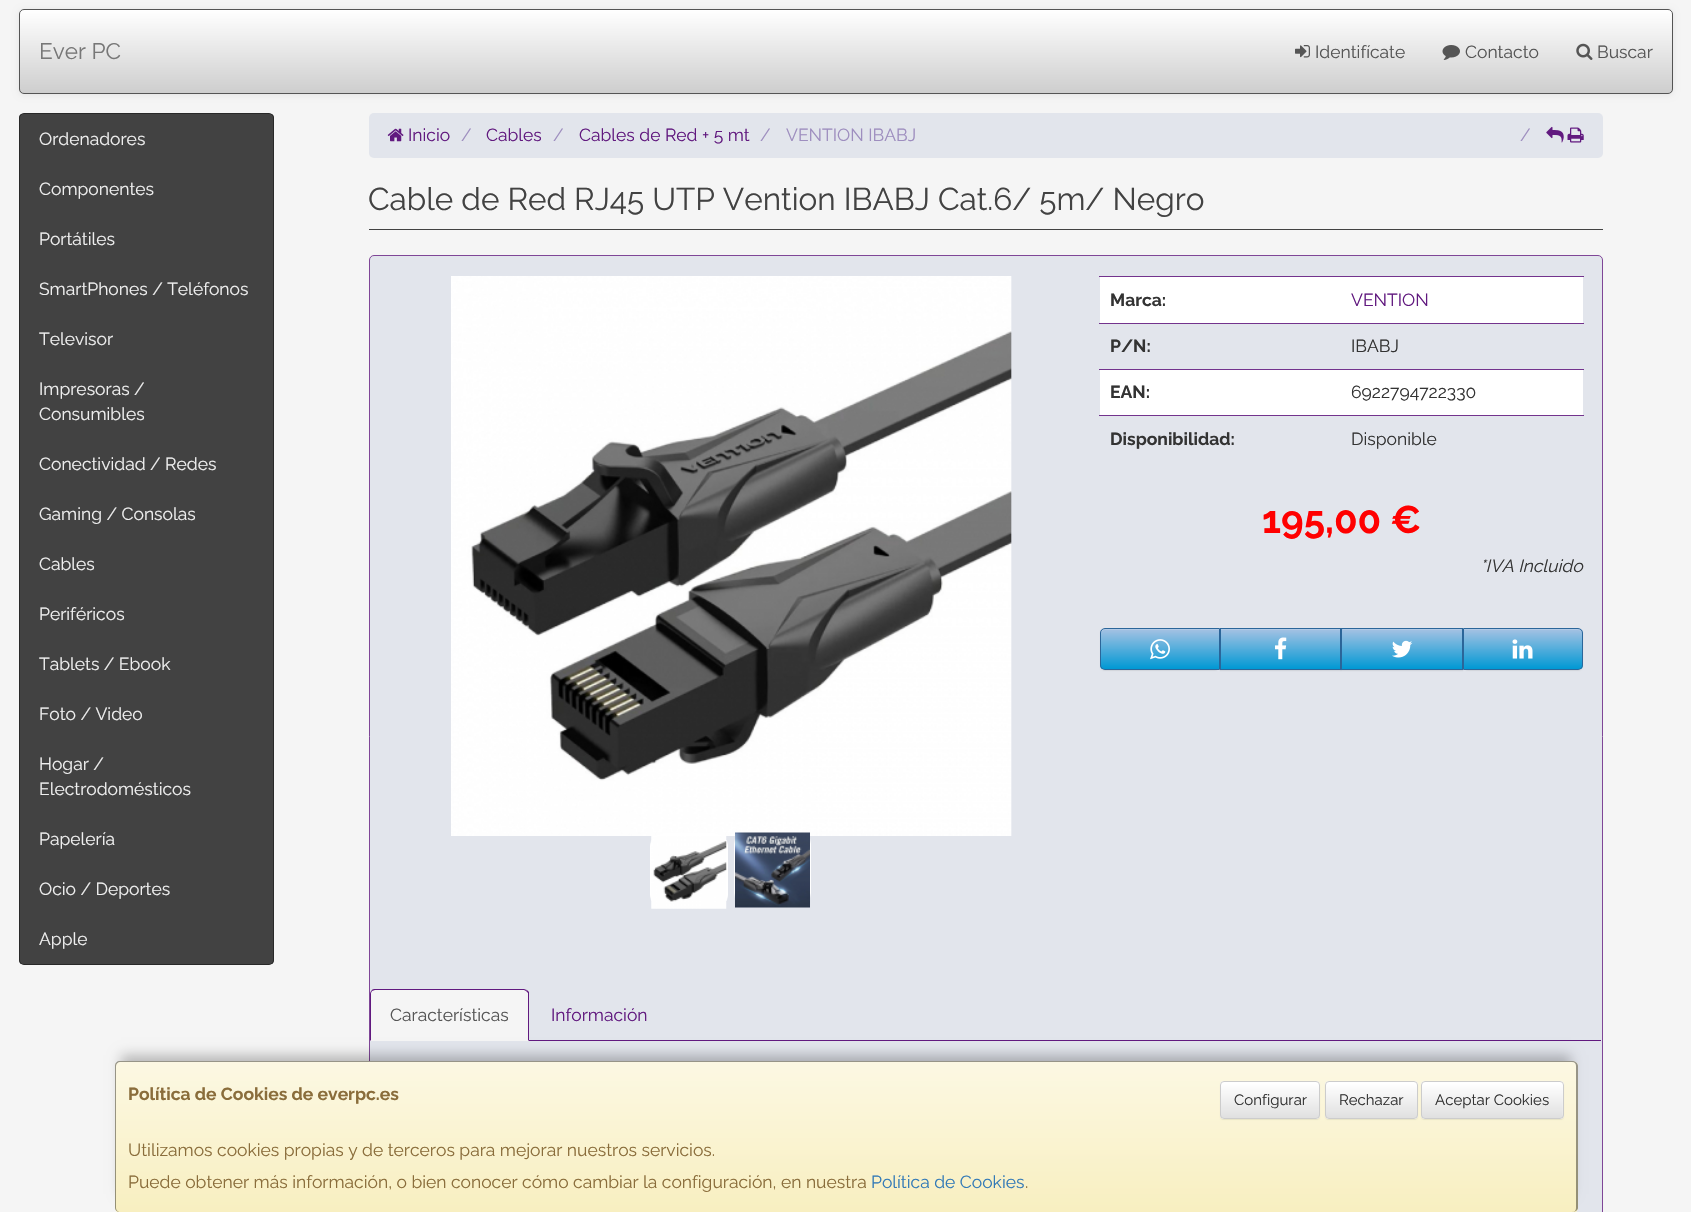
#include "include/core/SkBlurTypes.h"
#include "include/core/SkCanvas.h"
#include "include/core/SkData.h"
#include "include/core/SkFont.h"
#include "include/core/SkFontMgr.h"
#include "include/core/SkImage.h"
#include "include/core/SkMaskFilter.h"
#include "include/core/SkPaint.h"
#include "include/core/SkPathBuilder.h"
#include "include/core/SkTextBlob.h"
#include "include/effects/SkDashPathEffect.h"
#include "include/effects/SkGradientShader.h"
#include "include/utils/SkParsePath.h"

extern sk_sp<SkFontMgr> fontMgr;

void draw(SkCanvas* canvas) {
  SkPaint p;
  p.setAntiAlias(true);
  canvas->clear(SkColorSetRGB(245, 245, 245));
  p.setColor(SkColorSetARGB(18, 0, 0, 0));
  p.setMaskFilter(SkMaskFilter::MakeBlur(kNormal_SkBlurStyle, 3));
  canvas->drawRoundRect(SkRect::MakeLTRB(19, 10, 1673, 95), 5, 5, p);
  p.setMaskFilter(nullptr);
  canvas->save();
  canvas->clipPath(SkPathBuilder().moveTo(24, 9).lineTo(1668, 9).cubicTo(1671, 9, 1673, 11, 1673, 14).lineTo(1673, 89).cubicTo(1673, 92, 1671, 94, 1668, 94).lineTo(24, 94).cubicTo(21, 94, 19, 92, 19, 89).lineTo(19, 14).cubicTo(19, 11, 21, 9, 24, 9).close().detach(), true);
  {
    const SkColor colors[] = {SK_ColorWHITE, SkColorSetRGB(206, 206, 206)};
    const float stops[] = {0, 1};
    const SkPoint ends[] = {{846, 10}, {846, 93}};
    p.setShader(SkGradientShader::MakeLinear(ends, colors, stops, 2, SkTileMode::kClamp));
    p.setAlpha(255);
  }
  canvas->drawRect(SkRect::MakeLTRB(19, 10, 1673, 93), p);
  canvas->restore();
  p.setStyle(SkPaint::kStroke_Style);
  p.setStrokeWidth(1);
  p.setShader(nullptr);
  p.setColor(SkColorSetRGB(85, 85, 85));
  canvas->drawRoundRect(SkRect::MakeLTRB(19.5f, 9.5f, 1672.5f, 93.5f), 4.5f, 4.5f, p);
  canvas->drawImageRect(SkImages::DeferredFromEncodedData(SkData::MakeFromFileName("images/1.png")), SkRect::MakeLTRB(1295, 45, 1310, 58), SkSamplingOptions());
  canvas->drawImageRect(SkImages::DeferredFromEncodedData(SkData::MakeFromFileName("images/2.png")), SkRect::MakeLTRB(1442, 45, 1460, 60), SkSamplingOptions());
  canvas->drawImageRect(SkImages::DeferredFromEncodedData(SkData::MakeFromFileName("images/3.png")), SkRect::MakeLTRB(1576, 43, 1593, 60), SkSamplingOptions());
  canvas->save();
  canvas->clipPath(SkPathBuilder().moveTo(24, 113).lineTo(269, 113).cubicTo(272, 113, 274, 115, 274, 118).lineTo(274, 960).cubicTo(274, 963, 272, 965, 269, 965).lineTo(24, 965).cubicTo(21, 965, 19, 963, 19, 960).lineTo(19, 118).cubicTo(19, 115, 21, 113, 24, 113).close().detach(), true);
  p.setStyle(SkPaint::kFill_Style);
  p.setColor(SkColorSetRGB(66, 66, 66));
  canvas->drawRect(SkRect::MakeLTRB(19, 114, 274, 964), p);
  canvas->restore();
  p.setStyle(SkPaint::kStroke_Style);
  p.setColor(SkColorSetRGB(40, 40, 40));
  canvas->drawRoundRect(SkRect::MakeLTRB(19.5f, 113.5f, 273.5f, 964.5f), 4.5f, 4.5f, p);
  p.setStyle(SkPaint::kFill_Style);
  p.setColor(SkColorSetRGB(226, 229, 236));
  canvas->drawRoundRect(SkRect::MakeLTRB(369, 113, 1603, 158), 5, 5, p);
  canvas->drawImageRect(SkImages::DeferredFromEncodedData(SkData::MakeFromFileName("images/4.png")), SkRect::MakeLTRB(387, 128, 404, 142), SkSamplingOptions());
  canvas->drawImageRect(SkImages::DeferredFromEncodedData(SkData::MakeFromFileName("images/5.png")), SkRect::MakeLTRB(1546, 126, 1564, 143), SkSamplingOptions());
  canvas->drawImageRect(SkImages::DeferredFromEncodedData(SkData::MakeFromFileName("images/6.png")), SkRect::MakeLTRB(1567, 127, 1584, 143), SkSamplingOptions());
  p.setColor(SkColorSetRGB(66, 66, 66));
  canvas->drawRect(SkRect::MakeLTRB(369, 229, 1603, 230), p);
  p.setColor(SkColorSetRGB(226, 229, 236));
  canvas->drawRoundRect(SkRect::MakeLTRB(369.5f, 255.5f, 1602.5f, 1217.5f), 4.5f, 4.5f, p);
  p.setStyle(SkPaint::kStroke_Style);
  p.setColor(SkColorSetRGB(127, 70, 151));
  canvas->drawRoundRect(SkRect::MakeLTRB(369.5f, 255.5f, 1602.5f, 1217.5f), 4.5f, 4.5f, p);
  canvas->drawImageRect(SkImages::DeferredFromEncodedData(SkData::MakeFromFileName("images/7.png")), SkRect::MakeLTRB(451, 276, 1012, 836), SkSamplingOptions());
  p.setStyle(SkPaint::kFill_Style);
  p.setColor(SK_ColorWHITE);
  canvas->drawRoundRect(SkRect::MakeLTRB(650.5f, 833.5f, 727.5f, 907.5f), 12.5f, 12.5f, p);
  p.setStyle(SkPaint::kStroke_Style);
  canvas->drawRoundRect(SkRect::MakeLTRB(650.5f, 833.5f, 727.5f, 907.5f), 12.5f, 12.5f, p);
  canvas->drawImageRect(SkImages::DeferredFromEncodedData(SkData::MakeFromFileName("images/8.png")), SkRect::MakeLTRB(651, 836, 727, 909), SkSamplingOptions());
  canvas->drawRoundRect(SkRect::MakeLTRB(734.5f, 831.5f, 810.5f, 905.5f), 12.5f, 12.5f, p);
  canvas->drawImageRect(SkImages::DeferredFromEncodedData(SkData::MakeFromFileName("images/9.png")), SkRect::MakeLTRB(735, 832, 810, 908), SkSamplingOptions());
  p.setStyle(SkPaint::kFill_Style);
  canvas->drawRect(SkRect::MakeLTRB(1100, 277, 1583, 323), p);
  p.setColor(SkColorSetRGB(115, 51, 141));
  canvas->drawRect(SkRect::MakeLTRB(1099, 276, 1584, 277), p);
  canvas->drawRect(SkRect::MakeLTRB(1099, 323, 1584, 324), p);
  p.setColor(SK_ColorWHITE);
  canvas->drawRect(SkRect::MakeLTRB(1100, 370, 1583, 415), p);
  p.setColor(SkColorSetRGB(115, 51, 141));
  canvas->drawRect(SkRect::MakeLTRB(1099, 369, 1584, 370), p);
  canvas->drawRect(SkRect::MakeLTRB(1099, 415, 1584, 416), p);
  p.setColor(SkColorSetARGB(18, 0, 0, 0));
  p.setMaskFilter(SkMaskFilter::MakeBlur(kNormal_SkBlurStyle, 0.5f));
  canvas->drawRoundRect(SkRect::MakeLTRB(1100, 629, 1220, 671), 5, 5, p);
  p.setMaskFilter(nullptr);
  canvas->save();
  canvas->clipPath(SkPathBuilder().moveTo(1105, 628).lineTo(1220, 628).lineTo(1220, 670).lineTo(1105, 670).cubicTo(1102, 670, 1100, 668, 1100, 665).lineTo(1100, 633).cubicTo(1100, 630, 1102, 628, 1105, 628).close().detach(), true);
  {
    const SkColor colors[] = {SkColorSetRGB(165, 194, 227), SkColorSetRGB(0, 152, 212)};
    const float stops[] = {0, 1};
    const SkPoint ends[] = {{1160, 629}, {1160, 669}};
    p.setShader(SkGradientShader::MakeLinear(ends, colors, stops, 2, SkTileMode::kClamp));
    p.setAlpha(255);
  }
  canvas->drawRect(SkRect::MakeLTRB(1100, 629, 1219, 669), p);
  canvas->restore();
  p.setShader(nullptr);
  p.setColor(SkColorSetARGB(38, 255, 255, 255));
  canvas->drawPath(SkPathBuilder().moveTo(1105, 630).lineTo(1219, 630).lineTo(1219, 629).lineTo(1105, 629).cubicTo(1103, 629, 1101, 631, 1101, 633).lineTo(1101, 634).cubicTo(1101, 632, 1103, 630, 1105, 630).close().detach(), p);
  p.setStyle(SkPaint::kStroke_Style);
  p.setColor(SkColorSetRGB(43, 102, 154));
  canvas->drawPath(SkPathBuilder().moveTo(1105, 628.5f).lineTo(1219.5f, 628.5f).lineTo(1219.5f, 669.5f).lineTo(1105, 669.5f).cubicTo(1102.5f, 669.5f, 1100.5f, 667.5f, 1100.5f, 665).lineTo(1100.5f, 633).cubicTo(1100.5f, 630.5f, 1102.5f, 628.5f, 1105, 628.5f).close().detach(), p);
  canvas->drawImageRect(SkImages::DeferredFromEncodedData(SkData::MakeFromFileName("images/10.png")), SkRect::MakeLTRB(1150, 639, 1170, 660), SkSamplingOptions());
  p.setStyle(SkPaint::kFill_Style);
  p.setColor(SkColorSetARGB(18, 0, 0, 0));
  p.setMaskFilter(SkMaskFilter::MakeBlur(kNormal_SkBlurStyle, 0.5f));
  canvas->drawRect(SkRect::MakeLTRB(1220, 629, 1341, 671), p);
  p.setMaskFilter(nullptr);
  {
    const SkColor colors[] = {SkColorSetRGB(165, 194, 227), SkColorSetRGB(0, 152, 212)};
    const float stops[] = {0, 1};
    const SkPoint ends[] = {{1281, 629}, {1281, 669}};
    p.setShader(SkGradientShader::MakeLinear(ends, colors, stops, 2, SkTileMode::kClamp));
    p.setAlpha(255);
  }
  canvas->drawRect(SkRect::MakeLTRB(1221, 630, 1340, 669), p);
  p.setShader(nullptr);
  p.setColor(SkColorSetRGB(177, 202, 231));
  canvas->drawRect(SkRect::MakeLTRB(1221, 629, 1340, 630), p);
  p.setStyle(SkPaint::kStroke_Style);
  p.setColor(SkColorSetRGB(43, 102, 154));
  canvas->drawRect(SkRect::MakeLTRB(1220.5f, 628.5f, 1340.5f, 669.5f), p);
  canvas->drawImageRect(SkImages::DeferredFromEncodedData(SkData::MakeFromFileName("images/11.png")), SkRect::MakeLTRB(1275, 637, 1287, 660), SkSamplingOptions());
  p.setStyle(SkPaint::kFill_Style);
  p.setColor(SkColorSetARGB(18, 0, 0, 0));
  p.setMaskFilter(SkMaskFilter::MakeBlur(kNormal_SkBlurStyle, 0.5f));
  canvas->drawRect(SkRect::MakeLTRB(1341, 629, 1463, 671), p);
  p.setMaskFilter(nullptr);
  {
    const SkColor colors[] = {SkColorSetRGB(165, 194, 227), SkColorSetRGB(0, 152, 212)};
    const float stops[] = {0, 1};
    const SkPoint ends[] = {{1402, 629}, {1402, 669}};
    p.setShader(SkGradientShader::MakeLinear(ends, colors, stops, 2, SkTileMode::kClamp));
    p.setAlpha(255);
  }
  canvas->drawRect(SkRect::MakeLTRB(1342, 629, 1462, 669), p);
  p.setShader(nullptr);
  p.setColor(SkColorSetRGB(177, 202, 231));
  canvas->drawRect(SkRect::MakeLTRB(1343, 629, 1461, 630), p);
  p.setStyle(SkPaint::kStroke_Style);
  p.setColor(SkColorSetRGB(43, 102, 154));
  canvas->drawRect(SkRect::MakeLTRB(1341.5f, 628.5f, 1462.5f, 669.5f), p);
  canvas->drawImageRect(SkImages::DeferredFromEncodedData(SkData::MakeFromFileName("images/12.png")), SkRect::MakeLTRB(1392, 640, 1413, 658), SkSamplingOptions());
  p.setStyle(SkPaint::kFill_Style);
  p.setColor(SkColorSetARGB(18, 0, 0, 0));
  p.setMaskFilter(SkMaskFilter::MakeBlur(kNormal_SkBlurStyle, 0.5f));
  canvas->drawRoundRect(SkRect::MakeLTRB(1463, 629, 1583, 671), 5, 5, p);
  p.setMaskFilter(nullptr);
  canvas->save();
  canvas->clipPath(SkPathBuilder().moveTo(1463, 628).lineTo(1578, 628).cubicTo(1581, 628, 1583, 630, 1583, 633).lineTo(1583, 665).cubicTo(1583, 668, 1581, 670, 1578, 670).lineTo(1463, 670).close().detach(), true);
  {
    const SkColor colors[] = {SkColorSetRGB(165, 194, 227), SkColorSetRGB(0, 152, 212)};
    const float stops[] = {0, 1};
    const SkPoint ends[] = {{1523, 629}, {1523, 669}};
    p.setShader(SkGradientShader::MakeLinear(ends, colors, stops, 2, SkTileMode::kClamp));
    p.setAlpha(255);
  }
  canvas->drawRect(SkRect::MakeLTRB(1464, 629, 1583, 669), p);
  canvas->restore();
  p.setShader(nullptr);
  p.setColor(SkColorSetRGB(177, 202, 231));
  canvas->drawPath(SkPathBuilder().moveTo(1464, 630).lineTo(1578, 630).cubicTo(1580, 630, 1581, 632, 1581, 634).lineTo(1581, 633).cubicTo(1581, 631, 1579, 629, 1577, 629).lineTo(1464, 629).close().detach(), p);
  p.setStyle(SkPaint::kStroke_Style);
  p.setColor(SkColorSetRGB(43, 102, 154));
  canvas->drawPath(SkPathBuilder().moveTo(1463.5f, 628.5f).lineTo(1578, 628.5f).cubicTo(1580.5f, 628.5f, 1582.5f, 630.5f, 1582.5f, 633).lineTo(1582.5f, 665).cubicTo(1582.5f, 667.5f, 1580.5f, 669.5f, 1578, 669.5f).lineTo(1463.5f, 669.5f).close().detach(), p);
  canvas->drawImageRect(SkImages::DeferredFromEncodedData(SkData::MakeFromFileName("images/13.png")), SkRect::MakeLTRB(1512, 639, 1533, 659), SkSamplingOptions());
  p.setStyle(SkPaint::kFill_Style);
  p.setColor(SkColorSetRGB(97, 25, 127));
  canvas->drawRect(SkRect::MakeLTRB(529, 1040, 1601, 1041), p);
  p.setColor(SkColorSetRGB(245, 245, 245));
  canvas->drawPath(SkPathBuilder().moveTo(375, 989).lineTo(524, 989).cubicTo(527, 989, 529, 991, 529, 994).lineTo(529, 1041).lineTo(370, 1041).lineTo(370, 994).cubicTo(370, 991, 372, 989, 375, 989).close().detach(), p);
  p.setColor(SkColorSetRGB(97, 25, 127));
  canvas->drawPath(SkPathBuilder().moveTo(375, 989).cubicTo(374, 989, 372, 989, 372, 990).lineTo(372, 991).lineTo(375, 990).lineTo(524, 990).lineTo(526, 991).lineTo(527, 990).lineTo(524, 989).close().detach(), p);
  canvas->drawPath(SkPathBuilder().moveTo(527, 990).lineTo(529, 992).lineTo(529, 1041).lineTo(528, 1040).lineTo(528, 993).lineTo(526, 991).close().detach(), p);
  canvas->drawPath(SkPathBuilder().moveTo(370, 994).lineTo(370, 1041).lineTo(371, 1040).lineTo(371, 993).lineTo(372, 991).lineTo(372, 990).cubicTo(371, 991, 370, 992, 370, 994).close().detach(), p);
  p.setColor(SkColorSetARGB(64, 0, 0, 0));
  p.setMaskFilter(SkMaskFilter::MakeBlur(kNormal_SkBlurStyle, 6));
  canvas->drawRect(SkRect::MakeLTRB(121, 1055, 1571, 1194), p);
  p.setMaskFilter(nullptr);
  p.setColor(SkColorSetRGB(252, 248, 227));
  canvas->drawRoundRect(SkRect::MakeLTRB(115, 1061, 1578, 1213), 5, 5, p);
  canvas->save();
  canvas->clipPath(SkPathBuilder().moveTo(120, 1061).lineTo(1573, 1061).cubicTo(1576, 1061, 1578, 1063, 1578, 1066).lineTo(1578, 1208).cubicTo(1578, 1211, 1576, 1213, 1573, 1213).lineTo(120, 1213).cubicTo(117, 1213, 115, 1211, 115, 1208).lineTo(115, 1066).cubicTo(115, 1063, 117, 1061, 120, 1061).close().detach(), true);
  {
    const SkColor colors[] = {SkColorSetRGB(252, 248, 227), SkColorSetRGB(248, 239, 192)};
    const float stops[] = {0, 1};
    const SkPoint ends[] = {{846, 1062}, {846, 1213}};
    p.setShader(SkGradientShader::MakeLinear(ends, colors, stops, 2, SkTileMode::kClamp));
    p.setAlpha(255);
  }
  canvas->drawPath(SkPathBuilder().moveTo(115, 1063).lineTo(1578, 1063).lineTo(1578, 1208).cubicTo(1578, 1211, 1576, 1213, 1573, 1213).lineTo(120, 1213).cubicTo(117, 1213, 115, 1211, 115, 1208).close().detach(), p);
  canvas->restore();
  p.setShader(nullptr);
  p.setColor(SkColorSetARGB(102, 0, 0, 0));
  canvas->drawPath(SkPathBuilder(SkPathFillType::kEvenOdd).moveTo(120, 1061).lineTo(1572, 1061).cubicTo(1575, 1061, 1578, 1063, 1578, 1066).lineTo(1578, 1208).cubicTo(1578, 1210, 1575, 1212, 1572, 1212).lineTo(120, 1212).cubicTo(117, 1212, 115, 1210, 115, 1208).lineTo(115, 1066).cubicTo(115, 1063, 117, 1061, 120, 1061).close().moveTo(120, 1062).lineTo(1572, 1062).cubicTo(1575, 1062, 1576, 1064, 1576, 1066).lineTo(1576, 1208).cubicTo(1576, 1210, 1575, 1212, 1572, 1212).lineTo(120, 1212).cubicTo(118, 1212, 116, 1210, 116, 1208).lineTo(116, 1066).cubicTo(116, 1064, 118, 1062, 120, 1062).close().detach(), p);
  p.setColor(SkColorSetARGB(18, 0, 0, 0));
  p.setMaskFilter(SkMaskFilter::MakeBlur(kNormal_SkBlurStyle, 0.5f));
  canvas->drawRoundRect(SkRect::MakeLTRB(1220, 1083, 1320, 1120), 4, 4, p);
  p.setMaskFilter(nullptr);
  p.setColor(SK_ColorWHITE);
  canvas->drawRoundRect(SkRect::MakeLTRB(1220, 1081, 1320, 1119), 4, 4, p);
  canvas->save();
  canvas->clipPath(SkPathBuilder().moveTo(1224, 1081).lineTo(1316, 1081).cubicTo(1318, 1081, 1320, 1083, 1320, 1085).lineTo(1320, 1115).cubicTo(1320, 1117, 1318, 1119, 1316, 1119).lineTo(1224, 1119).cubicTo(1222, 1119, 1220, 1117, 1220, 1115).lineTo(1220, 1085).cubicTo(1220, 1083, 1222, 1081, 1224, 1081).close().detach(), true);
  {
    const SkColor colors[] = {SK_ColorWHITE, SkColorSetRGB(224, 224, 224)};
    const float stops[] = {0, 1};
    const SkPoint ends[] = {{1270, 1083}, {1270, 1118}};
    p.setShader(SkGradientShader::MakeLinear(ends, colors, stops, 2, SkTileMode::kClamp));
    p.setAlpha(255);
  }
  canvas->drawRect(SkRect::MakeLTRB(1220, 1083, 1320, 1118), p);
  canvas->restore();
  p.setStyle(SkPaint::kStroke_Style);
  p.setShader(nullptr);
  p.setColor(SkColorSetRGB(204, 204, 204));
  canvas->drawRoundRect(SkRect::MakeLTRB(1220.5f, 1081.5f, 1319.5f, 1118.5f), 3.5f, 3.5f, p);
  p.setStyle(SkPaint::kFill_Style);
  p.setColor(SkColorSetARGB(18, 0, 0, 0));
  p.setMaskFilter(SkMaskFilter::MakeBlur(kNormal_SkBlurStyle, 0.5f));
  canvas->drawRoundRect(SkRect::MakeLTRB(1325, 1083, 1418, 1120), 4, 4, p);
  p.setMaskFilter(nullptr);
  p.setColor(SK_ColorWHITE);
  canvas->drawRoundRect(SkRect::MakeLTRB(1325, 1081, 1418, 1119), 4, 4, p);
  canvas->save();
  canvas->clipPath(SkPathBuilder().moveTo(1329, 1081).lineTo(1414, 1081).cubicTo(1416, 1081, 1418, 1083, 1418, 1085).lineTo(1418, 1115).cubicTo(1418, 1117, 1416, 1119, 1414, 1119).lineTo(1329, 1119).cubicTo(1327, 1119, 1325, 1117, 1325, 1115).lineTo(1325, 1085).cubicTo(1325, 1083, 1327, 1081, 1329, 1081).close().detach(), true);
  {
    const SkColor colors[] = {SK_ColorWHITE, SkColorSetRGB(224, 224, 224)};
    const float stops[] = {0, 1};
    const SkPoint ends[] = {{1371, 1083}, {1371, 1118}};
    p.setShader(SkGradientShader::MakeLinear(ends, colors, stops, 2, SkTileMode::kClamp));
    p.setAlpha(255);
  }
  canvas->drawRect(SkRect::MakeLTRB(1325, 1083, 1418, 1118), p);
  canvas->restore();
  p.setStyle(SkPaint::kStroke_Style);
  p.setShader(nullptr);
  p.setColor(SkColorSetRGB(204, 204, 204));
  canvas->drawRoundRect(SkRect::MakeLTRB(1325.5f, 1081.5f, 1417.5f, 1118.5f), 3.5f, 3.5f, p);
  p.setStyle(SkPaint::kFill_Style);
  p.setColor(SkColorSetARGB(18, 0, 0, 0));
  p.setMaskFilter(SkMaskFilter::MakeBlur(kNormal_SkBlurStyle, 0.5f));
  canvas->drawRoundRect(SkRect::MakeLTRB(1421, 1083, 1564, 1120), 4, 4, p);
  p.setMaskFilter(nullptr);
  p.setColor(SK_ColorWHITE);
  canvas->drawRoundRect(SkRect::MakeLTRB(1421, 1081, 1564, 1119), 4, 4, p);
  canvas->save();
  canvas->clipPath(SkPathBuilder().moveTo(1425, 1081).lineTo(1560, 1081).cubicTo(1562, 1081, 1564, 1083, 1564, 1085).lineTo(1564, 1115).cubicTo(1564, 1117, 1562, 1119, 1560, 1119).lineTo(1425, 1119).cubicTo(1423, 1119, 1421, 1117, 1421, 1115).lineTo(1421, 1085).cubicTo(1421, 1083, 1423, 1081, 1425, 1081).close().detach(), true);
  {
    const SkColor colors[] = {SK_ColorWHITE, SkColorSetRGB(224, 224, 224)};
    const float stops[] = {0, 1};
    const SkPoint ends[] = {{1493, 1083}, {1493, 1118}};
    p.setShader(SkGradientShader::MakeLinear(ends, colors, stops, 2, SkTileMode::kClamp));
    p.setAlpha(255);
  }
  canvas->drawRect(SkRect::MakeLTRB(1421, 1083, 1564, 1118), p);
  canvas->restore();
  p.setShader(nullptr);
  p.setColor(SkColorSetARGB(38, 255, 255, 255));
  canvas->drawPath(SkPathBuilder().moveTo(1425, 1084).lineTo(1560, 1084).cubicTo(1561, 1084, 1562, 1085, 1562, 1086).lineTo(1562, 1118).cubicTo(1562, 1117, 1563, 1116, 1563, 1116).lineTo(1563, 1086).cubicTo(1563, 1084, 1562, 1083, 1560, 1083).lineTo(1426, 1083).cubicTo(1424, 1083, 1424, 1084, 1423, 1085).close().detach(), p);
  p.setStyle(SkPaint::kStroke_Style);
  p.setColor(SkColorSetRGB(204, 204, 204));
  canvas->drawRoundRect(SkRect::MakeLTRB(1421.5f, 1081.5f, 1563.5f, 1118.5f), 3.5f, 3.5f, p);
  SkFont font1(fontMgr->matchFamilyStyle("Raleway", SkFontStyle::Normal()), 22.5f);
  font1.setSubpixel(true);
  p.setStyle(SkPaint::kFill_Style);
  p.setColor(SkColorSetRGB(119, 119, 119));
  canvas->drawString("Ever PC", 39, 59, font1, p);
  SkFont font2(fontMgr->matchFamilyStyle("Raleway", SkFontStyle::Normal()), 17.5f);
  font2.setSubpixel(true);
  p.setColor(SkColorSetRGB(85, 85, 85));
  canvas->drawString("Identifícate", 1315, 58, font2, p);
  canvas->drawString("Contacto", 1465, 58, font2, p);
  canvas->drawString("Buscar", 1597, 58, font2, p);
  p.setColor(SkColorSetRGB(239, 239, 239));
  canvas->drawString("Ordenadores", 39, 145, font2, p);
  canvas->drawString("Componentes", 39, 195, font2, p);
  canvas->drawString("Portátiles", 39, 245, font2, p);
  canvas->drawString("SmartPhones / Teléfonos", 39, 295, font2, p);
  canvas->drawString("Televisor", 39, 345, font2, p);
  canvas->drawString("Impresoras /", 39, 395, font2, p);
  canvas->drawString("Consumibles", 39, 420, font2, p);
  canvas->drawString("Conectividad / Redes", 39, 470, font2, p);
  canvas->drawString("Gaming / Consolas", 39, 520, font2, p);
  canvas->drawString("Cables", 39, 570, font2, p);
  canvas->drawString("Periféricos", 39, 620, font2, p);
  canvas->drawString("Tablets / Ebook", 39, 670, font2, p);
  canvas->drawString("Foto / Video", 39, 720, font2, p);
  canvas->drawString("Hogar /", 39, 770, font2, p);
  canvas->drawString("Electrodomésticos", 39, 795, font2, p);
  canvas->drawString("Papelería", 39, 845, font2, p);
  canvas->drawString("Ocio / Deportes", 39, 895, font2, p);
  canvas->drawString("Apple", 39, 945, font2, p);
  p.setColor(SkColorSetRGB(97, 25, 127));
  canvas->drawString("Inicio", 408, 141, font2, p);
  p.setColor(SkColorSetRGB(158, 142, 191));
  canvas->drawString("/", 461, 141, font2, p);
  p.setColor(SkColorSetRGB(97, 25, 127));
  canvas->drawString("Cables", 486, 141, font2, p);
  p.setColor(SkColorSetRGB(158, 142, 191));
  canvas->drawString("/", 553, 141, font2, p);
  p.setColor(SkColorSetRGB(97, 25, 127));
  canvas->drawString("Cables de Red + 5 mt", 579, 141, font2, p);
  p.setColor(SkColorSetRGB(158, 142, 191));
  canvas->drawString("/", 760, 141, font2, p);
  canvas->drawString("VENTION IBABJ", 786, 141, font2, p);
  canvas->drawString("/", 1520, 141, font2, p);
  SkFont font3(fontMgr->matchFamilyStyle("Raleway", SkFontStyle::Normal()), 31.5f);
  font3.setSubpixel(true);
  p.setColor(SkColorSetRGB(66, 66, 66));
  canvas->drawString("Cable de Red RJ45 UTP Vention IBABJ Cat.6/ 5m/ Negro", 368, 210, font3, p);
  SkFont font4(fontMgr->matchFamilyStyle("Raleway", SkFontStyle::Bold()), 17.5f);
  font4.setSubpixel(true);
  p.setColor(SkColorSetRGB(51, 51, 51));
  canvas->drawString("Marca:", 1110, 306, font4, p);
  p.setColor(SkColorSetRGB(97, 25, 127));
  canvas->drawString("VENTION", 1351, 306, font2, p);
  p.setColor(SkColorSetRGB(51, 51, 51));
  canvas->drawString("P/N:", 1110, 352, font4, p);
  canvas->drawString("IBABJ", 1351, 352, font2, p);
  canvas->drawString("EAN:", 1110, 398, font4, p);
  canvas->drawString("6922794722330", 1351, 398, font2, p);
  canvas->drawString("Disponibilidad:", 1110, 445, font4, p);
  canvas->drawString("Disponible", 1351, 445, font2, p);
  SkFont font5(fontMgr->matchFamilyStyle("Raleway", SkFontStyle::Bold()), 38.5f);
  font5.setSubpixel(true);
  p.setColor(SkColorSetRGB(255, 0, 0));
  canvas->drawString("195,00 €", 1262, 533, font5, p);
  SkFont font6(fontMgr->matchFamilyStyle("Raleway", SkFontStyle::Italic()), 17.5f);
  font6.setSubpixel(true);
  p.setColor(SkColorSetRGB(51, 51, 51));
  canvas->drawString("*IVA Incluido", 1480, 572, font6, p);
  p.setColor(SkColorSetRGB(85, 85, 85));
  canvas->drawString("Características", 390, 1021, font2, p);
  p.setColor(SkColorSetRGB(97, 25, 127));
  canvas->drawString("Información", 551, 1021, font2, p);
  p.setColor(SkColorSetRGB(138, 109, 59));
  canvas->drawString("Política de Cookies de everpc.es", 128, 1100, font4, p);
  SkFont font7(fontMgr->matchFamilyStyle("Raleway", SkFontStyle::Normal()), 15);
  font7.setSubpixel(true);
  p.setColor(SkColorSetRGB(51, 51, 51));
  canvas->drawString("Configurar", 1234, 1105, font7, p);
  canvas->drawString("Rechazar", 1339, 1105, font7, p);
  canvas->drawString("Aceptar Cookies", 1435, 1105, font7, p);
  p.setColor(SkColorSetRGB(138, 109, 59));
  canvas->drawString("Utilizamos cookies propias y de terceros para mejorar nuestros servicios.", 128, 1156, font2, p);
  canvas->drawString("Puede obtener más información, o bien conocer cómo cambiar la configuración, en nuestra", 128, 1188, font2, p);
  p.setColor(SkColorSetRGB(51, 122, 183));
  canvas->drawString("Política de Cookies", 871, 1188, font2, p);
  p.setColor(SkColorSetRGB(138, 109, 59));
  canvas->drawString(".", 1025, 1188, font2, p);
}
